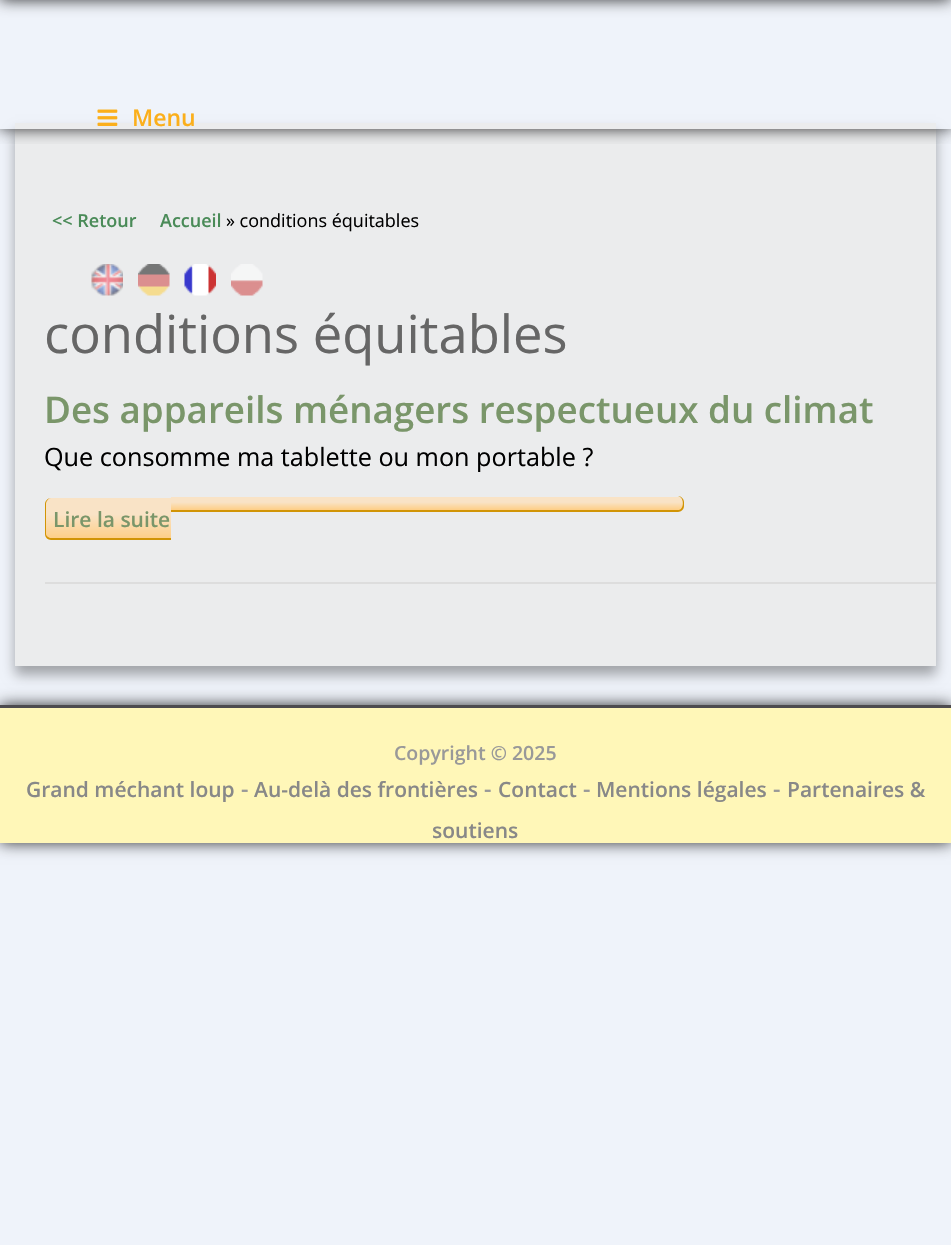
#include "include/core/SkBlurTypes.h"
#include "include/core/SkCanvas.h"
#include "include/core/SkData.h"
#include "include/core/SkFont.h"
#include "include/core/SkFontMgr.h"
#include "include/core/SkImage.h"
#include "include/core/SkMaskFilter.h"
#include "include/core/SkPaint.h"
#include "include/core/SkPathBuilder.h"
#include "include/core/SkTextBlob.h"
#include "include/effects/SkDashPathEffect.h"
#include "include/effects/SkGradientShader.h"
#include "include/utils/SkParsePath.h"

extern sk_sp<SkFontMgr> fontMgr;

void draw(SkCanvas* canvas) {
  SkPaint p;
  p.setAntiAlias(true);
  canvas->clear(SkColorSetRGB(239, 243, 250));
  p.setColor(SkColorSetARGB(204, 0, 0, 0));
  p.setMaskFilter(SkMaskFilter::MakeBlur(kNormal_SkBlurStyle, 7.5f));
  canvas->drawRect(SkRect::MakeLTRB(0, -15, 951, 0), p);
  p.setMaskFilter(nullptr);
  p.setColor(SkColorSetARGB(84, 0, 0, 0));
  p.setMaskFilter(SkMaskFilter::MakeBlur(kNormal_SkBlurStyle, 6));
  canvas->drawRect(SkRect::MakeLTRB(15, 132, 936, 675), p);
  p.setMaskFilter(nullptr);
  p.setColor(SkColorSetRGB(235, 236, 237));
  canvas->drawRect(SkRect::MakeLTRB(15, 123, 936, 666), p);
  canvas->save();
  canvas->clipRect(SkRect::MakeLTRB(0, 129, 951, 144));
  p.setColor(SkColorSetARGB(204, 0, 0, 0));
  p.setMaskFilter(SkMaskFilter::MakeBlur(kNormal_SkBlurStyle, 7.5f));
  canvas->drawRect(SkRect::MakeLTRB(0, -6, 951, 129), p);
  p.setMaskFilter(nullptr);
  canvas->restore();
  canvas->drawImageRect(SkImages::DeferredFromEncodedData(SkData::MakeFromFileName("images/1.png")), SkRect::MakeLTRB(97, 109, 118, 126), SkSamplingOptions());
  canvas->drawImageRect(SkImages::DeferredFromEncodedData(SkData::MakeFromFileName("images/2.png")), SkRect::MakeLTRB(91, 264, 123, 296), SkSamplingOptions());
  canvas->drawImageRect(SkImages::DeferredFromEncodedData(SkData::MakeFromFileName("images/3.png")), SkRect::MakeLTRB(138, 264, 170, 296), SkSamplingOptions());
  canvas->drawImageRect(SkImages::DeferredFromEncodedData(SkData::MakeFromFileName("images/4.png")), SkRect::MakeLTRB(184, 264, 216, 296), SkSamplingOptions());
  canvas->drawImageRect(SkImages::DeferredFromEncodedData(SkData::MakeFromFileName("images/5.png")), SkRect::MakeLTRB(231, 264, 263, 296), SkSamplingOptions());
  p.setColor(SkColorSetRGB(221, 221, 221));
  canvas->drawRect(SkRect::MakeLTRB(45, 582, 936, 584), p);
  canvas->save();
  canvas->clipPath(SkPathBuilder().moveTo(51, 498).lineTo(171, 498).lineTo(171, 540).lineTo(51, 540).cubicTo(47.5f, 540, 45, 537.5f, 45, 534).lineTo(45, 504).cubicTo(45, 500.5f, 47.5f, 498, 51, 498).close().detach(), true);
  {
    const SkColor colors[] = {SkColorSetRGB(249, 227, 198), SkColorSetRGB(249, 227, 198), SkColorSetRGB(254, 206, 133)};
    const float stops[] = {0, 0.4f, 1};
    const SkPoint ends[] = {{109, 498}, {109, 539}};
    p.setShader(SkGradientShader::MakeLinear(ends, colors, stops, 3, SkTileMode::kClamp));
    p.setAlpha(255);
  }
  canvas->drawPath(SkPathBuilder().moveTo(51, 498).lineTo(171, 498).lineTo(171, 539).lineTo(45, 539).lineTo(45, 504).cubicTo(45, 500.5f, 47.5f, 498, 51, 498).close().detach(), p);
  canvas->restore();
  p.setShader(nullptr);
  p.setColor(SkColorSetRGB(209, 148, 5));
  canvas->drawPath(SkPathBuilder(SkPathFillType::kEvenOdd).moveTo(51, 498).lineTo(171, 498).lineTo(171, 540).lineTo(51, 540).cubicTo(48, 540, 45, 537, 45, 534).lineTo(45, 504).cubicTo(45, 501, 48, 498, 51, 498).close().moveTo(51, 498).lineTo(171, 498).lineTo(171, 538).lineTo(51, 538).cubicTo(49, 538, 46, 536, 46, 534).lineTo(46, 504).cubicTo(46, 501, 49, 498, 51, 498).close().detach(), p);
  canvas->save();
  canvas->clipPath(SkPathBuilder().moveTo(171, 497).lineTo(678, 497).cubicTo(681.5f, 497, 684, 499.5f, 684, 503).lineTo(684, 506).cubicTo(684, 509.5f, 681.5f, 512, 678, 512).lineTo(171, 512).close().detach(), true);
  {
    const SkColor colors[] = {SkColorSetRGB(249, 227, 198), SkColorSetRGB(249, 227, 198), SkColorSetRGB(254, 206, 133)};
    const float stops[] = {0, 0.4f, 1};
    const SkPoint ends[] = {{427, 497}, {427, 510}};
    p.setShader(SkGradientShader::MakeLinear(ends, colors, stops, 3, SkTileMode::kClamp));
    p.setAlpha(255);
  }
  canvas->drawPath(SkPathBuilder().moveTo(171, 497).lineTo(678, 497).cubicTo(681.5f, 497, 684, 499.5f, 684, 503).lineTo(684, 510).lineTo(171, 510).close().detach(), p);
  canvas->restore();
  p.setShader(nullptr);
  p.setColor(SkColorSetRGB(209, 148, 5));
  canvas->drawPath(SkPathBuilder(SkPathFillType::kEvenOdd).moveTo(171, 496).lineTo(678, 496).cubicTo(681, 496, 684, 499, 684, 502).lineTo(684, 506).cubicTo(684, 509, 681, 512, 678, 512).lineTo(171, 512).close().moveTo(171, 496).lineTo(678, 496).lineTo(680, 497).cubicTo(684, 499, 684, 509, 679, 510).lineTo(171, 510).close().detach(), p);
  p.setColor(SkColorSetARGB(204, 0, 0, 0));
  p.setMaskFilter(SkMaskFilter::MakeBlur(kNormal_SkBlurStyle, 7.5f));
  canvas->drawRect(SkRect::MakeLTRB(0, 705, 951, 843), p);
  p.setMaskFilter(nullptr);
  p.setColor(SkColorSetRGB(255, 247, 184));
  canvas->drawRect(SkRect::MakeLTRB(0, 708, 951, 843), p);
  p.setColor(SkColorSetRGB(77, 75, 78));
  canvas->drawRect(SkRect::MakeLTRB(0, 705, 951, 708), p);
  SkFont font1(fontMgr->matchFamilyStyle("Open Sans", SkFontStyle(600, SkFontStyle::kNormal_Width, SkFontStyle::kUpright_Slant)), 23);
  font1.setSubpixel(true);
  p.setColor(SkColorSetRGB(251, 175, 27));
  canvas->drawString("Menu", 132, 126, font1, p);
  SkFont font2(fontMgr->matchFamilyStyle("Open Sans", SkFontStyle(600, SkFontStyle::kNormal_Width, SkFontStyle::kUpright_Slant)), 18);
  font2.setSubpixel(true);
  p.setColor(SkColorSetRGB(74, 139, 88));
  canvas->drawString("<< Retour", 52, 227, font2, p);
  canvas->drawString("Accueil", 160, 227, font2, p);
  SkFont font3(fontMgr->matchFamilyStyle("Open Sans", SkFontStyle::Normal()), 18);
  font3.setSubpixel(true);
  p.setColor(SK_ColorBLACK);
  canvas->drawString("» conditions équitables", 226, 227, font3, p);
  SkFont font4(fontMgr->matchFamilyStyle("Open Sans", SkFontStyle::Normal()), 52.5f);
  font4.setSubpixel(true);
  p.setColor(SkColorSetRGB(102, 102, 102));
  canvas->drawString("conditions équitables", 44, 353, font4, p);
  SkFont font5(fontMgr->matchFamilyStyle("Open Sans", SkFontStyle(600, SkFontStyle::kNormal_Width, SkFontStyle::kUpright_Slant)), 36.75f);
  font5.setSubpixel(true);
  p.setColor(SkColorSetRGB(122, 150, 106));
  canvas->drawString("Des appareils ménagers respectueux du climat", 44, 423, font5, p);
  SkFont font6(fontMgr->matchFamilyStyle("Open Sans", SkFontStyle::Normal()), 25.2f);
  font6.setSubpixel(true);
  p.setColor(SK_ColorBLACK);
  canvas->drawString("Que consomme ma tablette ou mon portable ?", 44, 466, font6, p);
  SkFont font7(fontMgr->matchFamilyStyle("Open Sans", SkFontStyle(600, SkFontStyle::kNormal_Width, SkFontStyle::kUpright_Slant)), 21);
  font7.setSubpixel(true);
  p.setColor(SkColorSetRGB(122, 150, 106));
  canvas->drawString("Lire la suite", 53, 527, font7, p);
  SkFont font8(fontMgr->matchFamilyStyle("Open Sans", SkFontStyle(600, SkFontStyle::kNormal_Width, SkFontStyle::kUpright_Slant)), 19.5f);
  font8.setSubpixel(true);
  p.setColor(SkColorSetRGB(153, 153, 153));
  canvas->drawString("Copyright © 2025", 394, 760, font8, p);
  p.setColor(SkColorSetRGB(136, 136, 136));
  canvas->drawString("Grand méchant loup", 26, 797, font7, p);
  p.setColor(SkColorSetRGB(153, 153, 153));
  canvas->drawString("-", 241, 797, font1, p);
  p.setColor(SkColorSetRGB(136, 136, 136));
  canvas->drawString("Au-delà des frontières", 254, 797, font7, p);
  p.setColor(SkColorSetRGB(153, 153, 153));
  canvas->drawString("-", 484, 797, font1, p);
  p.setColor(SkColorSetRGB(136, 136, 136));
  canvas->drawString("Contact", 498, 797, font7, p);
  p.setColor(SkColorSetRGB(153, 153, 153));
  canvas->drawString("-", 583, 797, font1, p);
  p.setColor(SkColorSetRGB(136, 136, 136));
  canvas->drawString("Mentions légales", 596, 797, font7, p);
  p.setColor(SkColorSetRGB(153, 153, 153));
  canvas->drawString("-", 773, 797, font1, p);
  p.setColor(SkColorSetRGB(136, 136, 136));
  canvas->drawString("Partenaires &", 787, 797, font7, p);
  canvas->drawString("soutiens", 432, 838, font7, p);
}
